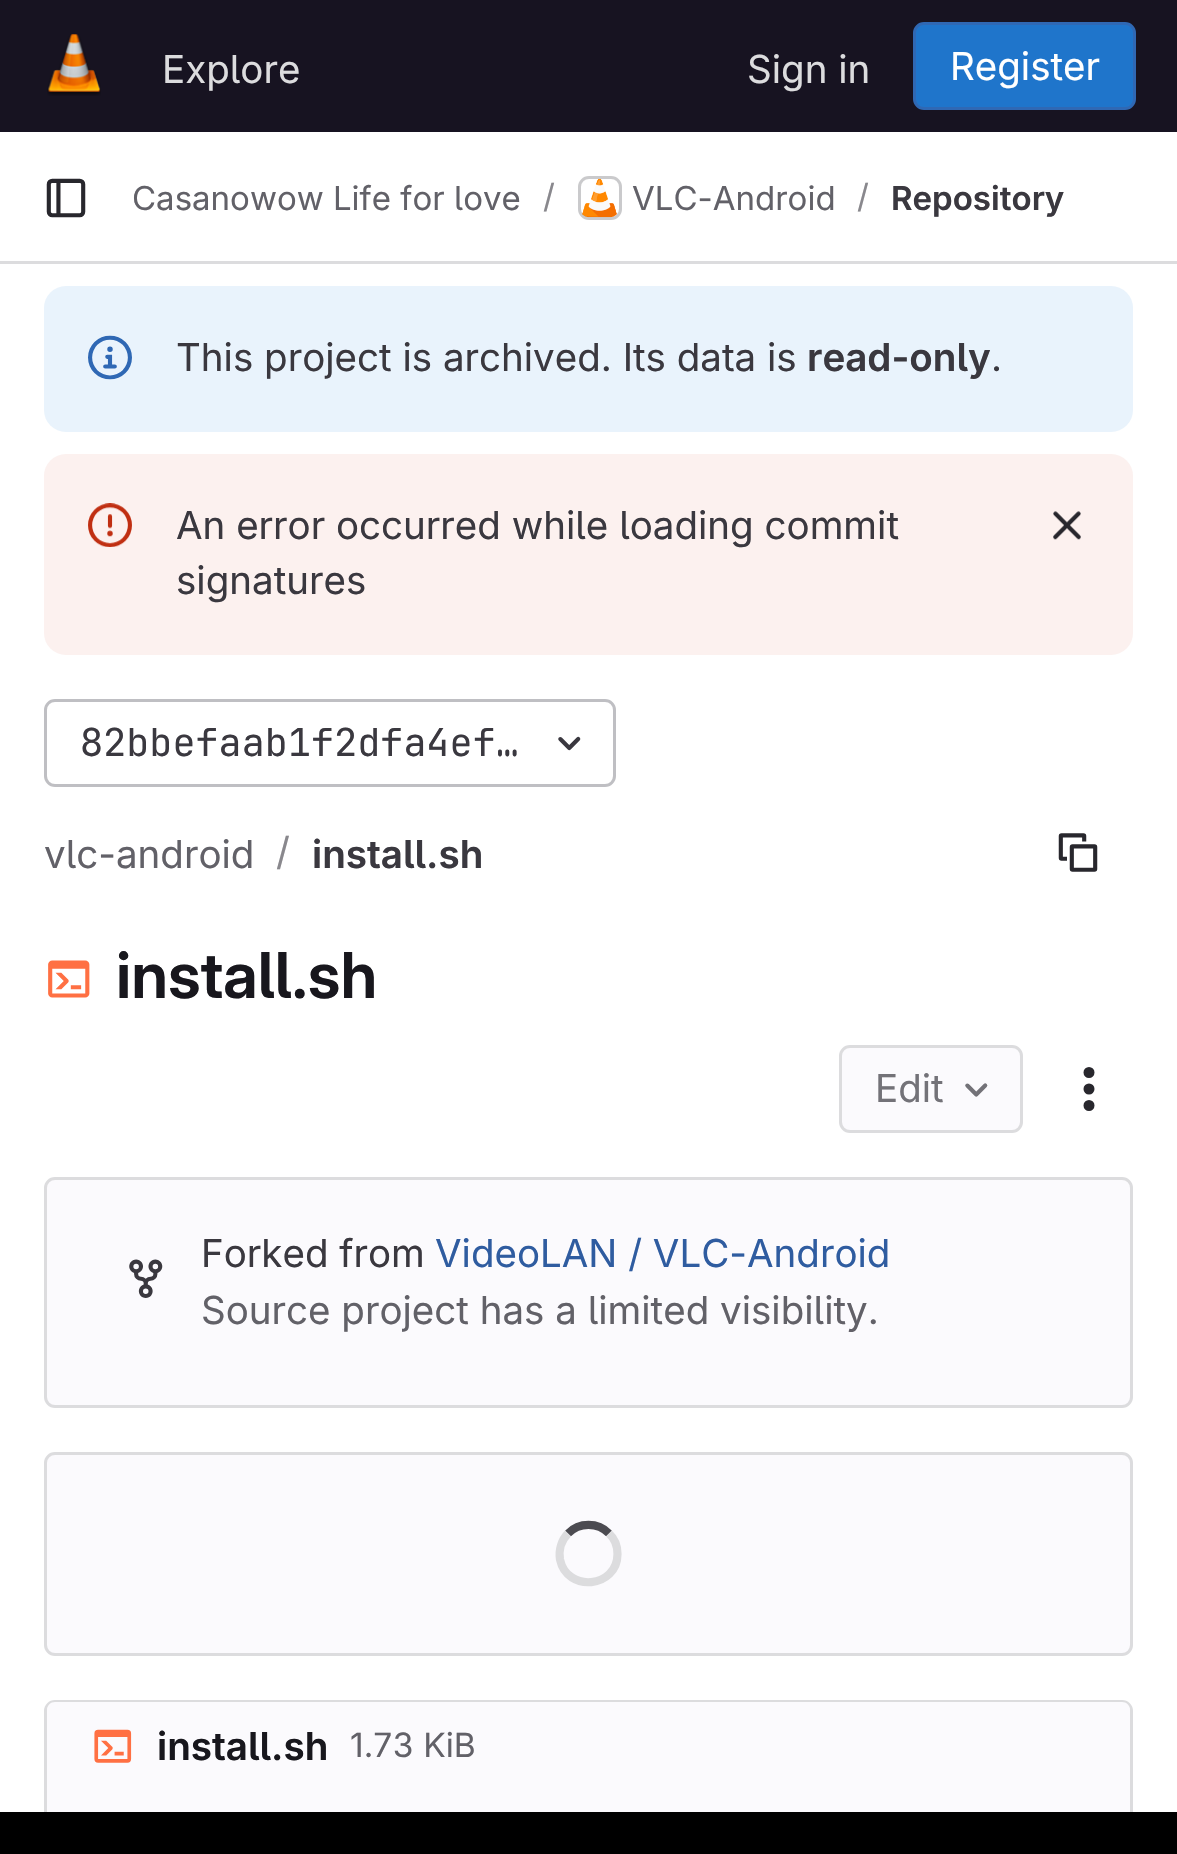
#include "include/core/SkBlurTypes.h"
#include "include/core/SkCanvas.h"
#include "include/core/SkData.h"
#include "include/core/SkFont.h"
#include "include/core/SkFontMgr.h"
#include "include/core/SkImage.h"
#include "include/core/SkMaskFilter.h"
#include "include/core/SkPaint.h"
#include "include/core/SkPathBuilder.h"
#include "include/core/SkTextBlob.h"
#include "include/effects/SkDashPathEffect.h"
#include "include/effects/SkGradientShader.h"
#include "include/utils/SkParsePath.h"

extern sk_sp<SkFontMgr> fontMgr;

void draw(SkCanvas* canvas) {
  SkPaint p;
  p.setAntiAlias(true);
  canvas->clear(SK_ColorWHITE);
  p.setColor(SkColorSetRGB(23, 19, 33));
  canvas->drawRect(SkRect::MakeLTRB(0, 0, 1177, 132), p);
  canvas->drawImageRect(SkImages::DeferredFromEncodedData(SkData::MakeFromFileName("images/1.png")), SkRect::MakeLTRB(47, 34, 101, 96), SkSamplingOptions());
  p.setColor(SkColorSetRGB(31, 117, 203));
  canvas->drawRoundRect(SkRect::MakeLTRB(914.5f, 23.5f, 1134.5f, 108.5f), 9.5f, 9.5f, p);
  p.setStyle(SkPaint::kStroke_Style);
  p.setStrokeWidth(3);
  p.setColor(SkColorSetRGB(47, 104, 180));
  canvas->drawRoundRect(SkRect::MakeLTRB(914.5f, 23.5f, 1134.5f, 108.5f), 9.5f, 9.5f, p);
  p.setStyle(SkPaint::kFill_Style);
  p.setColor(SkColorSetRGB(220, 220, 222));
  canvas->drawRect(SkRect::MakeLTRB(0, 261, 1177, 264), p);
  canvas->drawImageRect(SkImages::DeferredFromEncodedData(SkData::MakeFromFileName("images/2.png")), SkRect::MakeLTRB(46, 178, 86, 218), SkSamplingOptions());
  p.setStyle(SkPaint::kStroke_Style);
  canvas->drawRoundRect(SkRect::MakeLTRB(579.5f, 177.5f, 620.5f, 218.5f), 9.5f, 9.5f, p);
  canvas->drawImageRect(SkImages::DeferredFromEncodedData(SkData::MakeFromFileName("images/3.png")), SkRect::MakeLTRB(582, 178, 617, 218), SkSamplingOptions());
  p.setColor(SkColorSetARGB(20, 5, 5, 6));
  canvas->drawRoundRect(SkRect::MakeLTRB(579.5f, 177.5f, 620.5f, 218.5f), 9.5f, 9.5f, p);
  p.setStyle(SkPaint::kFill_Style);
  p.setColor(SkColorSetRGB(233, 243, 252));
  canvas->drawRoundRect(SkRect::MakeLTRB(44, 286, 1133, 432), 22, 22, p);
  canvas->drawImageRect(SkImages::DeferredFromEncodedData(SkData::MakeFromFileName("images/4.png")), SkRect::MakeLTRB(88, 335, 132, 380), SkSamplingOptions());
  p.setColor(SkColorSetRGB(252, 241, 239));
  canvas->drawRoundRect(SkRect::MakeLTRB(44, 454, 1133, 655), 22, 22, p);
  canvas->drawImageRect(SkImages::DeferredFromEncodedData(SkData::MakeFromFileName("images/5.png")), SkRect::MakeLTRB(88, 503, 132, 547), SkSamplingOptions());
  canvas->drawImageRect(SkImages::DeferredFromEncodedData(SkData::MakeFromFileName("images/6.png")), SkRect::MakeLTRB(1053, 511, 1081, 540), SkSamplingOptions());
  p.setStyle(SkPaint::kStroke_Style);
  p.setColor(SkColorSetRGB(191, 191, 195));
  canvas->drawRoundRect(SkRect::MakeLTRB(45.5f, 700.5f, 614.5f, 785.5f), 9.5f, 9.5f, p);
  canvas->drawImageRect(SkImages::DeferredFromEncodedData(SkData::MakeFromFileName("images/7.png")), SkRect::MakeLTRB(558, 736, 581, 751), SkSamplingOptions());
  canvas->drawImageRect(SkImages::DeferredFromEncodedData(SkData::MakeFromFileName("images/8.png")), SkRect::MakeLTRB(1058, 833, 1098, 872), SkSamplingOptions());
  canvas->drawImageRect(SkImages::DeferredFromEncodedData(SkData::MakeFromFileName("images/9.png")), SkRect::MakeLTRB(48, 960, 90, 998), SkSamplingOptions());
  p.setStyle(SkPaint::kFill_Style);
  p.setColor(SkColorSetRGB(251, 250, 253));
  canvas->drawRoundRect(SkRect::MakeLTRB(840.5f, 1046.5f, 1021.5f, 1131.5f), 9.5f, 9.5f, p);
  p.setStyle(SkPaint::kStroke_Style);
  p.setColor(SkColorSetRGB(220, 220, 222));
  canvas->drawRoundRect(SkRect::MakeLTRB(840.5f, 1046.5f, 1021.5f, 1131.5f), 9.5f, 9.5f, p);
  canvas->drawImageRect(SkImages::DeferredFromEncodedData(SkData::MakeFromFileName("images/10.png")), SkRect::MakeLTRB(965, 1083, 988, 1097), SkSamplingOptions());
  canvas->drawImageRect(SkImages::DeferredFromEncodedData(SkData::MakeFromFileName("images/11.png")), SkRect::MakeLTRB(1083, 1067, 1095, 1111), SkSamplingOptions());
  p.setStyle(SkPaint::kFill_Style);
  p.setColor(SkColorSetRGB(251, 250, 253));
  canvas->drawRoundRect(SkRect::MakeLTRB(45.5f, 1178.5f, 1131.5f, 1406.5f), 9.5f, 9.5f, p);
  p.setStyle(SkPaint::kStroke_Style);
  p.setColor(SkColorSetRGB(220, 220, 222));
  canvas->drawRoundRect(SkRect::MakeLTRB(45.5f, 1178.5f, 1131.5f, 1406.5f), 9.5f, 9.5f, p);
  canvas->drawImageRect(SkImages::DeferredFromEncodedData(SkData::MakeFromFileName("images/12.png")), SkRect::MakeLTRB(129, 1259, 163, 1298), SkSamplingOptions());
  p.setStyle(SkPaint::kFill_Style);
  p.setColor(SkColorSetRGB(251, 250, 253));
  canvas->drawRoundRect(SkRect::MakeLTRB(45.5f, 1453.5f, 1131.5f, 1654.5f), 9.5f, 9.5f, p);
  p.setStyle(SkPaint::kStroke_Style);
  p.setColor(SkColorSetRGB(220, 220, 222));
  canvas->drawRoundRect(SkRect::MakeLTRB(45.5f, 1453.5f, 1131.5f, 1654.5f), 9.5f, 9.5f, p);
  p.setStrokeWidth(8.2f);
  p.setColor(SkColorSetRGB(76, 75, 81));
  canvas->drawPath(SkPathBuilder().moveTo(568, 1533.5f).cubicTo(579, 1522, 598, 1522, 609, 1533.5f).detach(), p);
  p.setColor(SkColorSetRGB(220, 220, 222));
  canvas->drawPath(SkPathBuilder().moveTo(609, 1533.5f).cubicTo(614.5f, 1538.5f, 617.5f, 1546, 617.5f, 1554).cubicTo(617.5f, 1588, 567, 1593, 560, 1559.5f).cubicTo(558.5f, 1550, 561.5f, 1540, 568, 1533.5f).detach(), p);
  p.setStrokeWidth(3);
  canvas->drawRoundRect(SkRect::MakeLTRB(45.5f, 1701.5f, 1131.5f, 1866.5f), 9.5f, 9.5f, p);
  p.setStyle(SkPaint::kFill_Style);
  p.setColor(SkColorSetRGB(251, 250, 253));
  canvas->drawPath(SkPathBuilder().moveTo(55, 1702).lineTo(1122, 1702).cubicTo(1126.5f, 1702, 1130, 1705.5f, 1130, 1710).lineTo(1130, 1818).lineTo(47, 1818).lineTo(47, 1710).cubicTo(47, 1705.5f, 50.5f, 1702, 55, 1702).close().detach(), p);
  canvas->drawImageRect(SkImages::DeferredFromEncodedData(SkData::MakeFromFileName("images/13.png")), SkRect::MakeLTRB(94, 1729, 132, 1763), SkSamplingOptions());
  p.setColor(SK_ColorBLACK);
  canvas->drawRect(SkRect::MakeLTRB(0, 1812, 1177, 1854), p);
  SkFont font1(fontMgr->matchFamilyStyle("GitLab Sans", SkFontStyle::Normal()), 38.5f);
  font1.setSubpixel(true);
  p.setColor(SkColorSetRGB(220, 220, 222));
  canvas->drawString("Explore", 162, 83, font1, p);
  canvas->drawString("Sign in", 747, 83, font1, p);
  p.setColor(SK_ColorWHITE);
  canvas->drawString("Register", 950, 80, font1, p);
  SkFont font2(fontMgr->matchFamilyStyle("GitLab Sans", SkFontStyle::Normal()), 33);
  font2.setSubpixel(true);
  p.setColor(SkColorSetRGB(98, 97, 104));
  canvas->drawString("Casanowow Life for love", 132, 210, font2, p);
  p.setColor(SkColorSetRGB(137, 136, 141));
  canvas->drawString("/", 543, 208, font2, p);
  p.setColor(SkColorSetRGB(98, 97, 104));
  canvas->drawString("VLC-Android", 632, 210, font2, p);
  p.setColor(SkColorSetRGB(137, 136, 141));
  canvas->drawString("/", 857, 208, font2, p);
  SkFont font3(fontMgr->matchFamilyStyle("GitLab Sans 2", SkFontStyle(600, SkFontStyle::kNormal_Width, SkFontStyle::kUpright_Slant)), 33);
  font3.setSubpixel(true);
  p.setColor(SkColorSetRGB(58, 56, 63));
  canvas->drawString("Repository", 891, 210, font3, p);
  canvas->drawString("This project is archived. Its data is", 176, 371, font1, p);
  SkFont font4(fontMgr->matchFamilyStyle("GitLab Sans 2", SkFontStyle(600, SkFontStyle::kNormal_Width, SkFontStyle::kUpright_Slant)), 38.5f);
  font4.setSubpixel(true);
  canvas->drawString("read-only", 807, 371, font4, p);
  canvas->drawString(".", 991, 371, font1, p);
  canvas->drawString("An error occurred while loading commit", 176, 539, font1, p);
  canvas->drawString("signatures", 176, 594, font1, p);
  SkFont font5(fontMgr->matchFamilyStyle("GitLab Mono", SkFontStyle::Normal()), 38.5f);
  font5.setSubpixel(true);
  canvas->drawString("82bbefaab1f2dfa4ef…", 80, 756, font5, p);
  p.setColor(SkColorSetRGB(98, 97, 104));
  canvas->drawString("vlc-android", 44, 868, font1, p);
  p.setColor(SkColorSetRGB(137, 136, 141));
  canvas->drawString("/", 276, 865, font1, p);
  p.setColor(SkColorSetRGB(58, 56, 63));
  canvas->drawString("install.sh", 312, 868, font4, p);
  SkFont font6(fontMgr->matchFamilyStyle("GitLab Sans", SkFontStyle(600, SkFontStyle::kNormal_Width, SkFontStyle::kUpright_Slant)), 63.25f);
  font6.setSubpixel(true);
  p.setColor(SkColorSetRGB(24, 23, 29));
  canvas->drawString("install.sh", 116, 998, font6, p);
  p.setColor(SkColorSetRGB(115, 114, 120));
  canvas->drawString("Edit", 875, 1102, font1, p);
  p.setColor(SkColorSetRGB(58, 56, 63));
  canvas->drawString("Forked from", 201, 1267, font1, p);
  p.setColor(SkColorSetRGB(47, 92, 160));
  canvas->drawString("VideoLAN / VLC-Android", 435, 1267, font1, p);
  p.setColor(SkColorSetRGB(98, 97, 104));
  canvas->drawString("Source project has a limited visibility.", 201, 1324, font1, p);
  p.setColor(SkColorSetRGB(24, 23, 29));
  canvas->drawString("install.sh", 157, 1760, font4, p);
  SkFont font7(fontMgr->matchFamilyStyle("GitLab Sans", SkFontStyle::Normal()), 33.5f);
  font7.setSubpixel(true);
  p.setColor(SkColorSetRGB(98, 97, 104));
  canvas->drawString("1.73 KiB", 350, 1757, font7, p);
}
